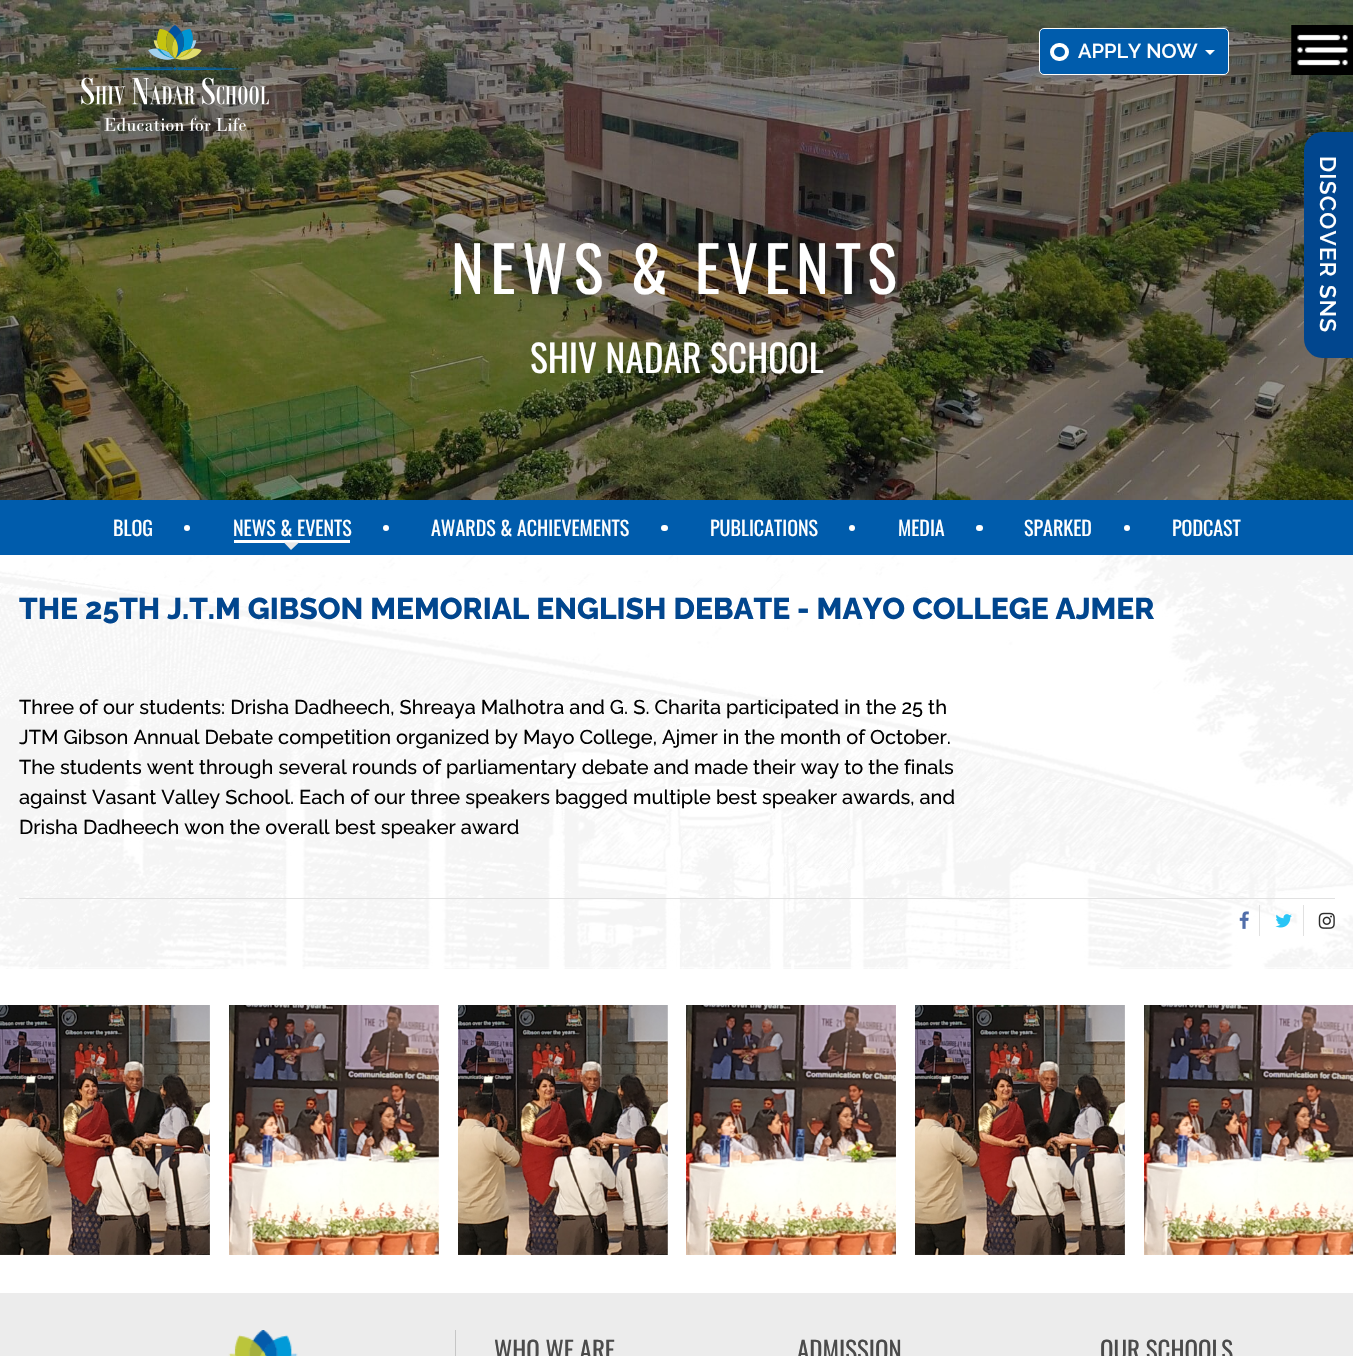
#include "include/core/SkBlurTypes.h"
#include "include/core/SkCanvas.h"
#include "include/core/SkData.h"
#include "include/core/SkFont.h"
#include "include/core/SkFontMgr.h"
#include "include/core/SkImage.h"
#include "include/core/SkMaskFilter.h"
#include "include/core/SkPaint.h"
#include "include/core/SkPathBuilder.h"
#include "include/core/SkTextBlob.h"
#include "include/effects/SkDashPathEffect.h"
#include "include/effects/SkGradientShader.h"
#include "include/utils/SkParsePath.h"

extern sk_sp<SkFontMgr> fontMgr;

void draw(SkCanvas* canvas) {
  SkPaint p;
  p.setAntiAlias(true);
  auto spacedText = [&](const char* s, float x, float y, const SkFont& font, const SkPaint& ink, float letter, float word) {
    std::vector<SkGlyphID> glyphs(font.countText(s, strlen(s), SkTextEncoding::kUTF8));
    std::vector<float> xs(glyphs.size());
    font.textToGlyphs(s, strlen(s), SkTextEncoding::kUTF8, glyphs);
    font.getXPos(glyphs, xs, x);
    float extra = 0;
    for (size_t i = 0; i < glyphs.size(); i++) {
      xs[i] += extra;
      extra += letter + word * (glyphs[i] == font.unicharToGlyph(' '));
    }
    canvas->drawTextBlob(SkTextBlob::MakeFromPosHGlyphs(glyphs, xs, y, font), 0, 0, ink);
  };
  canvas->clear(SK_ColorWHITE);
  canvas->drawImageRect(SkImages::DeferredFromEncodedData(SkData::MakeFromFileName("images/3.png")), SkRect::MakeLTRB(0, 0, 1353, 500), SkSamplingOptions());
  canvas->drawImageRect(SkImages::DeferredFromEncodedData(SkData::MakeFromFileName("images/1.png")), SkRect::MakeLTRB(81, 25, 269, 131), SkSamplingOptions());
  p.setColor(SkColorSetRGB(0, 92, 172));
  canvas->drawRoundRect(SkRect::MakeLTRB(1039.5f, 28.5f, 1228.5f, 74.5f), 4.5f, 4.5f, p);
  p.setStyle(SkPaint::kStroke_Style);
  p.setStrokeWidth(1);
  p.setColor(SK_ColorWHITE);
  canvas->drawRoundRect(SkRect::MakeLTRB(1039.5f, 28.5f, 1228.5f, 74.5f), 4.5f, 4.5f, p);
  p.setStrokeWidth(4);
  canvas->drawRoundRect(SkRect::MakeLTRB(1052, 45, 1067, 59), 7, 7, p);
  p.setStyle(SkPaint::kFill_Style);
  canvas->drawPath(SkPathBuilder().moveTo(1205, 50).lineTo(1215, 50).lineTo(1210, 55).close().detach(), p);
  canvas->drawImageRect(SkImages::DeferredFromEncodedData(SkData::MakeFromFileName("images/2.png")), SkRect::MakeLTRB(1291, 25, 1353, 75), SkSamplingOptions());
  p.setColor(SkColorSetRGB(1, 70, 142));
  canvas->drawPath(SkPathBuilder().moveTo(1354, 132).lineTo(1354, 358).lineTo(1322, 358).cubicTo(1312, 358, 1304, 349, 1304, 339).lineTo(1304, 151).cubicTo(1304, 141, 1312, 132, 1322, 132).close().detach(), p);
  p.setColor(SkColorSetRGB(0, 92, 172));
  canvas->drawRect(SkRect::MakeLTRB(0, 500, 1353, 555), p);
  p.setColor(SK_ColorWHITE);
  canvas->drawCircle(187, 528, 3, p);
  canvas->drawRect(SkRect::MakeLTRB(234, 540, 350, 543), p);
  p.setColor(SkColorSetRGB(232, 232, 232));
  canvas->drawPath(SkPathBuilder().moveTo(284, 542.5f).lineTo(299, 542.5f).lineTo(291, 550).close().detach(), p);
  p.setColor(SK_ColorWHITE);
  canvas->drawCircle(386, 528, 3, p);
  canvas->drawRoundRect(SkRect::MakeLTRB(661, 525, 668, 531), 3, 3, p);
  canvas->drawCircle(852, 528, 3, p);
  canvas->drawRoundRect(SkRect::MakeLTRB(976, 525, 983, 531), 3, 3, p);
  canvas->drawCircle(1127, 528, 3, p);
  canvas->drawImageRect(SkImages::DeferredFromEncodedData(SkData::MakeFromFileName("images/4.png")), SkRect::MakeLTRB(0, 555, 1353, 969), SkSamplingOptions());
  p.setColor(SkColorSetRGB(225, 225, 225));
  canvas->drawRect(SkRect::MakeLTRB(19, 898, 1335, 899), p);
  canvas->drawRect(SkRect::MakeLTRB(1259, 905, 1260, 936), p);
  canvas->drawImageRect(SkImages::DeferredFromEncodedData(SkData::MakeFromFileName("images/5.png")), SkRect::MakeLTRB(1239, 911, 1249, 929), SkSamplingOptions());
  canvas->drawRect(SkRect::MakeLTRB(1303, 905, 1304, 936), p);
  canvas->drawImageRect(SkImages::DeferredFromEncodedData(SkData::MakeFromFileName("images/6.png")), SkRect::MakeLTRB(1275, 914, 1292, 928), SkSamplingOptions());
  canvas->drawImageRect(SkImages::DeferredFromEncodedData(SkData::MakeFromFileName("images/7.png")), SkRect::MakeLTRB(1318, 912, 1335, 929), SkSamplingOptions());
  canvas->drawImageRect(SkImages::DeferredFromEncodedData(SkData::MakeFromFileName("images/8.png")), SkRect::MakeLTRB(0, 1005, 210, 1255), SkSamplingOptions());
  canvas->drawImageRect(SkImages::DeferredFromEncodedData(SkData::MakeFromFileName("images/9.png")), SkRect::MakeLTRB(229, 1005, 439, 1255), SkSamplingOptions());
  canvas->drawImageRect(SkImages::DeferredFromEncodedData(SkData::MakeFromFileName("images/10.png")), SkRect::MakeLTRB(458, 1005, 668, 1255), SkSamplingOptions());
  canvas->drawImageRect(SkImages::DeferredFromEncodedData(SkData::MakeFromFileName("images/11.png")), SkRect::MakeLTRB(686, 1005, 896, 1255), SkSamplingOptions());
  canvas->drawImageRect(SkImages::DeferredFromEncodedData(SkData::MakeFromFileName("images/12.png")), SkRect::MakeLTRB(915, 1005, 1125, 1255), SkSamplingOptions());
  canvas->drawImageRect(SkImages::DeferredFromEncodedData(SkData::MakeFromFileName("images/13.png")), SkRect::MakeLTRB(1144, 1005, 1353, 1255), SkSamplingOptions());
  p.setColor(SkColorSetRGB(236, 236, 236));
  canvas->drawRect(SkRect::MakeLTRB(0, 1293, 1353, 1356), p);
  p.setColor(SkColorSetRGB(198, 198, 198));
  canvas->drawRect(SkRect::MakeLTRB(455, 1330, 456, 1356), p);
  canvas->drawImageRect(SkImages::DeferredFromEncodedData(SkData::MakeFromFileName("images/14.png")), SkRect::MakeLTRB(228, 1330, 298, 1356), SkSamplingOptions());
  SkFont font1(fontMgr->matchFamilyStyle("Raleway", SkFontStyle(600, SkFontStyle::kNormal_Width, SkFontStyle::kUpright_Slant)), 20);
  font1.setSubpixel(true);
  p.setColor(SK_ColorWHITE);
  canvas->drawString("APPLY NOW", 1078, 58, font1, p);
  SkFont font2(fontMgr->matchFamilyStyle("Oswald", SkFontStyle::Normal()), 62.5f);
  font2.setSubpixel(true);
  spacedText("NEWS & EVENTS", 451, 294, font2, p, 6.25f, 0);
  SkFont font3(fontMgr->matchFamilyStyle("Oswald", SkFontStyle::Normal()), 37.5f);
  font3.setSubpixel(true);
  canvas->drawString("SHIV NADAR SCHOOL", 530, 373, font3, p);
  SkFont font4(fontMgr->matchFamilyStyle("Raleway", SkFontStyle(600, SkFontStyle::kNormal_Width, SkFontStyle::kUpright_Slant)), 22.5f);
  font4.setSubpixel(true);
  canvas->save();
  canvas->rotate(90, 1320, 156);
  spacedText("DISCOVER SNS", 1320, 156, font4, p, 1.25f, 0);
  canvas->restore();
  SkFont font5(fontMgr->matchFamilyStyle("Oswald", SkFontStyle::Normal()), 20);
  font5.setSubpixel(true);
  canvas->drawString("BLOG", 113, 536, font5, p);
  canvas->drawString("NEWS & EVENTS", 233, 536, font5, p);
  canvas->drawString("AWARDS & ACHIEVEMENTS", 431, 536, font5, p);
  canvas->drawString("PUBLICATIONS", 710, 536, font5, p);
  canvas->drawString("MEDIA", 898, 536, font5, p);
  canvas->drawString("SPARKED", 1024, 536, font5, p);
  canvas->drawString("PODCAST", 1172, 536, font5, p);
  SkFont font6(fontMgr->matchFamilyStyle("Raleway", SkFontStyle(800, SkFontStyle::kNormal_Width, SkFontStyle::kUpright_Slant)), 30);
  font6.setSubpixel(true);
  p.setColor(SkColorSetRGB(1, 70, 142));
  canvas->drawString("THE 25TH J.T.M GIBSON MEMORIAL ENGLISH DEBATE - MAYO COLLEGE AJMER", 19, 619, font6, p);
  SkFont font7(fontMgr->matchFamilyStyle("Raleway", SkFontStyle(500, SkFontStyle::kNormal_Width, SkFontStyle::kUpright_Slant)), 20);
  font7.setSubpixel(true);
  p.setColor(SK_ColorBLACK);
  canvas->drawString("Three of our students: Drisha Dadheech, Shreaya Malhotra and G. S. Charita participated in the 25 th", 19, 714, font7, p);
  canvas->drawString("JTM Gibson Annual Debate competition organized by Mayo College, Ajmer in the month of October.", 19, 744, font7, p);
  canvas->drawString("The students went through several rounds of parliamentary debate and made their way to the finals", 19, 774, font7, p);
  canvas->drawString("against Vasant Valley School. Each of our three speakers bagged multiple best speaker awards, and", 19, 804, font7, p);
  canvas->drawString("Drisha Dadheech won the overall best speaker award", 19, 834, font7, p);
  SkFont font8(fontMgr->matchFamilyStyle("Oswald", SkFontStyle::Normal()), 25);
  font8.setSubpixel(true);
  p.setColor(SkColorSetRGB(75, 75, 75));
  canvas->drawString("WHO WE ARE", 494, 1360, font8, p);
  canvas->drawString("ADMISSION", 797, 1360, font8, p);
  canvas->drawString("OUR SCHOOLS", 1100, 1360, font8, p);
}
